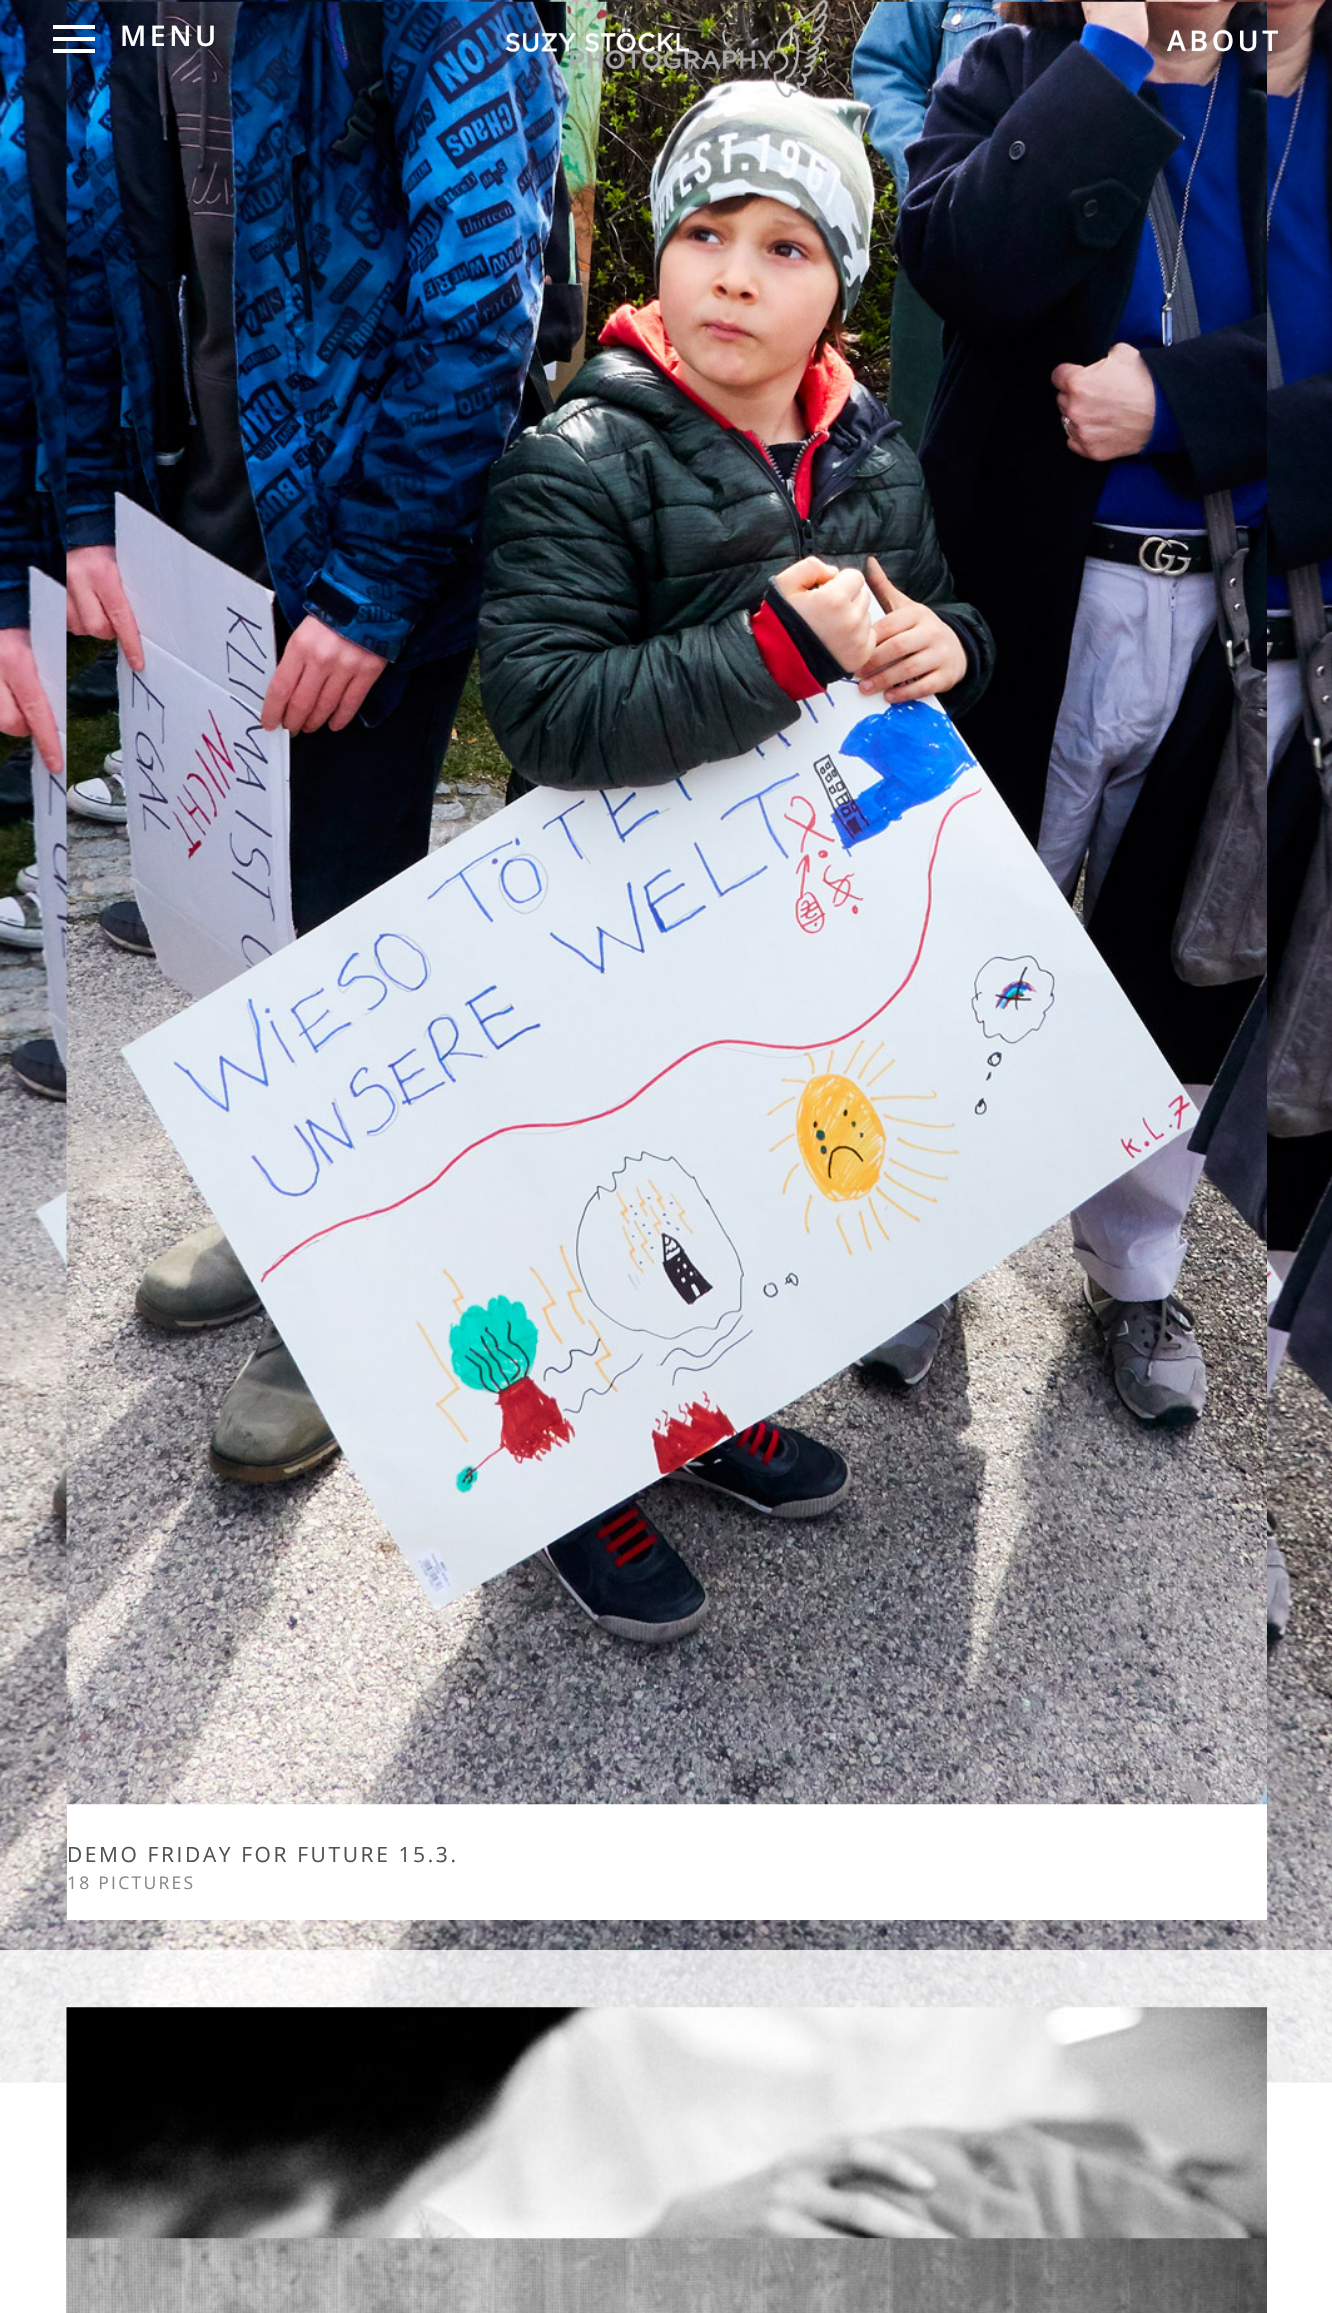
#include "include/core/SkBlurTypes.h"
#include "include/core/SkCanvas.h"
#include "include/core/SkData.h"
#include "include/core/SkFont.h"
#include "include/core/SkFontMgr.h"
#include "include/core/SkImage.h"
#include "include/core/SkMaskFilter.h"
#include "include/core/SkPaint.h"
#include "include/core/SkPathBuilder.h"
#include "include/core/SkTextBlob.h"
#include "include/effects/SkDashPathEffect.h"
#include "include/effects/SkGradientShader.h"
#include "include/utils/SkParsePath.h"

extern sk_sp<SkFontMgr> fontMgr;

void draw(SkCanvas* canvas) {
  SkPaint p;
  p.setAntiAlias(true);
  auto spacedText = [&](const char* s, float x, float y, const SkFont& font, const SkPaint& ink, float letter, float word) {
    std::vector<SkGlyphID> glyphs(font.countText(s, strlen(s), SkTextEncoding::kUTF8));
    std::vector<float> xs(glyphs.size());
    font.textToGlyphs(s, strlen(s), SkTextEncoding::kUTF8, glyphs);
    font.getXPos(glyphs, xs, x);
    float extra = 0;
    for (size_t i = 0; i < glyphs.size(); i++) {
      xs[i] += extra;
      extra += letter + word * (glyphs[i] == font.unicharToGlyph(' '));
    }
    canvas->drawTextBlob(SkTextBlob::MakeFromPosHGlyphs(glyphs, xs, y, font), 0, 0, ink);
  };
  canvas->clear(SK_ColorWHITE);
  canvas->drawImageRect(SkImages::DeferredFromEncodedData(SkData::MakeFromFileName("images/1.png")), SkRect::MakeLTRB(0, 0, 1332, 2083), SkSamplingOptions());
  p.setColor(SkColorSetARGB(204, 255, 255, 255));
  canvas->drawRect(SkRect::MakeLTRB(0, 1950, 1332, 2083), p);
  p.setColor(SK_ColorWHITE);
  canvas->drawRect(SkRect::MakeLTRB(67, 1804, 1267, 1920), p);
  canvas->drawImageRect(SkImages::DeferredFromEncodedData(SkData::MakeFromFileName("images/3.png")), SkRect::MakeLTRB(66, 1, 1267, 1805), SkSamplingOptions());
  canvas->drawRect(SkRect::MakeLTRB(53, 25, 95, 29), p);
  canvas->drawRect(SkRect::MakeLTRB(53, 37, 95, 41), p);
  canvas->drawRect(SkRect::MakeLTRB(53, 49, 95, 53), p);
  canvas->drawImageRect(SkImages::DeferredFromEncodedData(SkData::MakeFromFileName("images/2.png")), SkRect::MakeLTRB(505, 0, 829, 98), SkSamplingOptions());
  canvas->drawImageRect(SkImages::DeferredFromEncodedData(SkData::MakeFromFileName("images/4.png")), SkRect::MakeLTRB(66, 2007, 1267, 2313), SkSamplingOptions());
  canvas->drawImageRect(SkImages::DeferredFromEncodedData(SkData::MakeFromFileName("images/5.png")), SkRect::MakeLTRB(66, 2238, 1267, 2313), SkSamplingOptions());
  SkFont font1(fontMgr->matchFamilyStyle("Open Sans", SkFontStyle(600, SkFontStyle::kNormal_Width, SkFontStyle::kUpright_Slant)), 28.5f);
  font1.setSubpixel(true);
  spacedText("MENU", 120, 46, font1, p, 3.5f, 0);
  spacedText("ABOUT", 1167, 51, font1, p, 3.5f, 0);
  SkFont font2(fontMgr->matchFamilyStyle("Open Sans", SkFontStyle::Normal()), 21);
  font2.setSubpixel(true);
  p.setColor(SkColorSetRGB(81, 81, 81));
  spacedText("DEMO FRIDAY FOR FUTURE 15.3.", 67, 1862, font2, p, 2.6f, 0);
  SkFont font3(fontMgr->matchFamilyStyle("Open Sans", SkFontStyle::Normal()), 17.5f);
  font3.setSubpixel(true);
  p.setColor(SkColorSetRGB(136, 136, 136));
  spacedText("18 PICTURES", 67, 1889, font3, p, 2.25f, 0);
}
